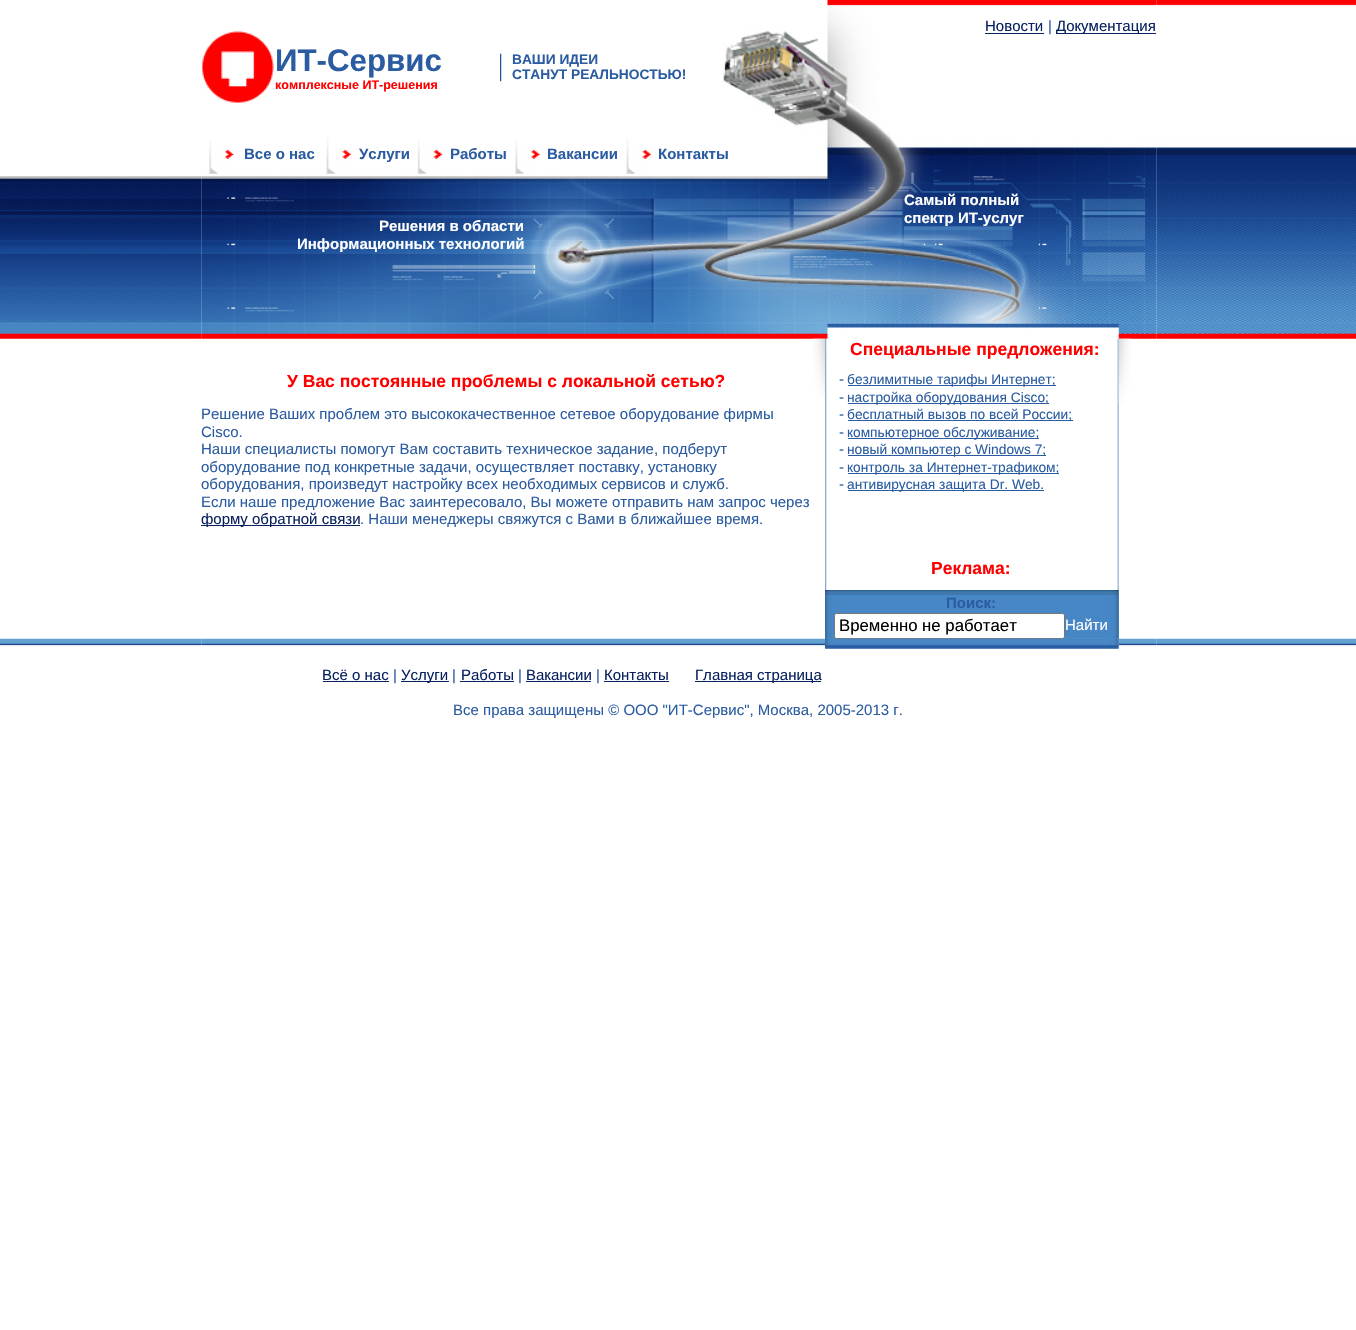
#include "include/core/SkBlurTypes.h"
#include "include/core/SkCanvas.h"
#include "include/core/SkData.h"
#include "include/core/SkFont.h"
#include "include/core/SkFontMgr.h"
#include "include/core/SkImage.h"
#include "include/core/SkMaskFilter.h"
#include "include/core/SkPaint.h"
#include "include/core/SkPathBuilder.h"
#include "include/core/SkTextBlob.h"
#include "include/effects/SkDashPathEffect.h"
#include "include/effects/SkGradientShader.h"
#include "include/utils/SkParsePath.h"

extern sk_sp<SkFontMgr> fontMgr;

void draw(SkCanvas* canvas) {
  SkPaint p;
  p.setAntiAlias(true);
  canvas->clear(SK_ColorWHITE);
  canvas->drawImageRect(SkImages::DeferredFromEncodedData(SkData::MakeFromFileName("images/1.png")), SkRect::MakeLTRB(0, 176, 202, 339), SkSamplingOptions());
  canvas->drawImageRect(SkImages::DeferredFromEncodedData(SkData::MakeFromFileName("images/2.png")), SkRect::MakeLTRB(201, 0, 1157, 339), SkSamplingOptions());
  p.setColor(SkColorSetRGB(9, 33, 95));
  canvas->drawRect(SkRect::MakeLTRB(985, 33, 1044, 34), p);
  canvas->drawRect(SkRect::MakeLTRB(1056, 33, 1156, 34), p);
  canvas->drawImageRect(SkImages::DeferredFromEncodedData(SkData::MakeFromFileName("images/3.png")), SkRect::MakeLTRB(201, 31, 274, 103), SkSamplingOptions());
  canvas->drawImageRect(SkImages::DeferredFromEncodedData(SkData::MakeFromFileName("images/4.png")), SkRect::MakeLTRB(500, 53, 502, 82), SkSamplingOptions());
  canvas->drawImageRect(SkImages::DeferredFromEncodedData(SkData::MakeFromFileName("images/5.png")), SkRect::MakeLTRB(209, 139, 234, 174), SkSamplingOptions());
  canvas->drawImageRect(SkImages::DeferredFromEncodedData(SkData::MakeFromFileName("images/6.png")), SkRect::MakeLTRB(326, 137, 352, 174), SkSamplingOptions());
  canvas->drawImageRect(SkImages::DeferredFromEncodedData(SkData::MakeFromFileName("images/7.png")), SkRect::MakeLTRB(417, 138, 443, 174), SkSamplingOptions());
  canvas->drawImageRect(SkImages::DeferredFromEncodedData(SkData::MakeFromFileName("images/8.png")), SkRect::MakeLTRB(515, 138, 540, 174), SkSamplingOptions());
  canvas->drawImageRect(SkImages::DeferredFromEncodedData(SkData::MakeFromFileName("images/9.png")), SkRect::MakeLTRB(626, 137, 652, 174), SkSamplingOptions());
  canvas->drawImageRect(SkImages::DeferredFromEncodedData(SkData::MakeFromFileName("images/10.png")), SkRect::MakeLTRB(1156, 0, 1356, 339), SkSamplingOptions());
  canvas->drawRect(SkRect::MakeLTRB(201, 525, 360, 526), p);
  canvas->drawImageRect(SkImages::DeferredFromEncodedData(SkData::MakeFromFileName("images/11.png")), SkRect::MakeLTRB(812, 338, 825, 398), SkSamplingOptions());
  canvas->drawImageRect(SkImages::DeferredFromEncodedData(SkData::MakeFromFileName("images/12.png")), SkRect::MakeLTRB(825, 338, 1119, 590), SkSamplingOptions());
  p.setColor(SkColorSetRGB(43, 92, 161));
  canvas->drawRect(SkRect::MakeLTRB(848, 385, 1056, 386), p);
  canvas->drawRect(SkRect::MakeLTRB(848, 403, 1049, 404), p);
  canvas->drawRect(SkRect::MakeLTRB(848, 420, 1073, 421), p);
  canvas->drawRect(SkRect::MakeLTRB(848, 438, 1039, 439), p);
  canvas->drawRect(SkRect::MakeLTRB(848, 455, 1046, 456), p);
  canvas->drawRect(SkRect::MakeLTRB(848, 473, 1059, 474), p);
  canvas->drawRect(SkRect::MakeLTRB(848, 490, 1044, 491), p);
  canvas->drawImageRect(SkImages::DeferredFromEncodedData(SkData::MakeFromFileName("images/13.png")), SkRect::MakeLTRB(1118, 338, 1132, 404), SkSamplingOptions());
  canvas->drawImageRect(SkImages::DeferredFromEncodedData(SkData::MakeFromFileName("images/14.png")), SkRect::MakeLTRB(1118, 590, 1119, 595), SkSamplingOptions());
  canvas->drawImageRect(SkImages::DeferredFromEncodedData(SkData::MakeFromFileName("images/15.png")), SkRect::MakeLTRB(825, 590, 1119, 595), SkSamplingOptions());
  p.setColor(SkColorSetRGB(100, 161, 208));
  canvas->drawRect(SkRect::MakeLTRB(825, 595, 1119, 639), p);
  canvas->drawImageRect(SkImages::DeferredFromEncodedData(SkData::MakeFromFileName("images/16.png")), SkRect::MakeLTRB(825, 595, 1119, 639), SkSamplingOptions());
  p.setColor(SK_ColorWHITE);
  canvas->drawRoundRect(SkRect::MakeLTRB(834.5f, 613.5f, 1064.5f, 638.5f), 2, 2, p);
  p.setStyle(SkPaint::kStroke_Style);
  p.setStrokeWidth(1);
  p.setColor(SkColorSetRGB(118, 118, 118));
  canvas->drawRoundRect(SkRect::MakeLTRB(834.5f, 613.5f, 1064.5f, 638.5f), 2, 2, p);
  canvas->drawImageRect(SkImages::DeferredFromEncodedData(SkData::MakeFromFileName("images/17.png")), SkRect::MakeLTRB(0, 638, 202, 646), SkSamplingOptions());
  canvas->drawImageRect(SkImages::DeferredFromEncodedData(SkData::MakeFromFileName("images/18.png")), SkRect::MakeLTRB(201, 638, 825, 646), SkSamplingOptions());
  canvas->drawImageRect(SkImages::DeferredFromEncodedData(SkData::MakeFromFileName("images/20.png")), SkRect::MakeLTRB(1118, 638, 1157, 646), SkSamplingOptions());
  canvas->drawImageRect(SkImages::DeferredFromEncodedData(SkData::MakeFromFileName("images/19.png")), SkRect::MakeLTRB(825, 638, 1119, 649), SkSamplingOptions());
  canvas->drawImageRect(SkImages::DeferredFromEncodedData(SkData::MakeFromFileName("images/21.png")), SkRect::MakeLTRB(1156, 638, 1356, 646), SkSamplingOptions());
  p.setStyle(SkPaint::kFill_Style);
  p.setColor(SkColorSetRGB(9, 33, 95));
  canvas->drawRect(SkRect::MakeLTRB(323, 681, 389, 682), p);
  canvas->drawRect(SkRect::MakeLTRB(401, 681, 449, 682), p);
  canvas->drawRect(SkRect::MakeLTRB(460, 681, 514, 682), p);
  canvas->drawRect(SkRect::MakeLTRB(526, 681, 591, 682), p);
  canvas->drawRect(SkRect::MakeLTRB(604, 681, 669, 682), p);
  canvas->drawRect(SkRect::MakeLTRB(695, 681, 821, 682), p);
  SkFont font1(fontMgr->matchFamilyStyle("Liberation Sans", SkFontStyle::Normal()), 15);
  font1.setSubpixel(true);
  canvas->drawString("Новости", 985, 31, font1, p);
  p.setColor(SkColorSetRGB(43, 92, 161));
  canvas->drawString("|", 1048, 31, font1, p);
  p.setColor(SkColorSetRGB(9, 33, 95));
  canvas->drawString("Документация", 1056, 31, font1, p);
  SkFont font2(fontMgr->matchFamilyStyle("Liberation Sans", SkFontStyle::Bold()), 31.25f);
  font2.setSubpixel(true);
  p.setColor(SkColorSetRGB(43, 92, 161));
  canvas->drawString("ИТ-Сервис", 275, 71, font2, p);
  SkFont font3(fontMgr->matchFamilyStyle("Liberation Sans", SkFontStyle::Bold()), 12.5f);
  font3.setSubpixel(true);
  p.setColor(SkColorSetRGB(255, 0, 0));
  canvas->drawString("комплексные ИТ-решения", 275, 89, font3, p);
  SkFont font4(fontMgr->matchFamilyStyle("Liberation Sans", SkFontStyle::Bold()), 13.75f);
  font4.setSubpixel(true);
  p.setColor(SkColorSetRGB(43, 92, 161));
  canvas->drawString("ВАШИ ИДЕИ", 512, 64, font4, p);
  canvas->drawString("СТАНУТ РЕАЛЬНОСТЬЮ!", 512, 79, font4, p);
  SkFont font5(fontMgr->matchFamilyStyle("Liberation Sans", SkFontStyle::Bold()), 15);
  font5.setSubpixel(true);
  canvas->drawString("Все о нас", 244, 159, font5, p);
  canvas->drawString("Услуги", 359, 159, font5, p);
  canvas->drawString("Работы", 450, 159, font5, p);
  canvas->drawString("Вакансии", 547, 159, font5, p);
  canvas->drawString("Контакты", 658, 159, font5, p);
  p.setColor(SK_ColorWHITE);
  canvas->drawString("Самый полный", 904, 205, font5, p);
  canvas->drawString("спектр ИТ-услуг", 904, 223, font5, p);
  canvas->drawString("Решения в области", 379, 231, font5, p);
  canvas->drawString("Информационных технологий", 297, 249, font5, p);
  SkFont font6(fontMgr->matchFamilyStyle("Liberation Sans", SkFontStyle::Bold()), 17.5f);
  font6.setSubpixel(true);
  p.setColor(SkColorSetRGB(255, 0, 0));
  canvas->drawString("У Вас постоянные проблемы с локальной сетью?", 287, 387, font6, p);
  p.setColor(SkColorSetRGB(43, 92, 161));
  canvas->drawString("Решение Ваших проблем это высококачественное сетевое оборудование фирмы", 201, 419, font1, p);
  canvas->drawString("Cisco.", 201, 437, font1, p);
  canvas->drawString("Наши специалисты помогут Вам составить техническое задание, подберут", 201, 454, font1, p);
  canvas->drawString("оборудование под конкретные задачи, осуществляет поставку, установку", 201, 472, font1, p);
  canvas->drawString("оборудования, произведут настройку всех необходимых сервисов и служб.", 201, 489, font1, p);
  canvas->drawString("Если наше предложение Вас заинтересовало, Вы можете отправить нам запрос через", 201, 507, font1, p);
  p.setColor(SkColorSetRGB(9, 33, 95));
  canvas->drawString("форму обратной связи", 201, 524, font1, p);
  p.setColor(SkColorSetRGB(43, 92, 161));
  canvas->drawString(". Наши менеджеры свяжутся с Вами в ближайшее время.", 360, 524, font1, p);
  p.setColor(SkColorSetRGB(255, 0, 0));
  canvas->drawString("Специальные предложения:", 850, 355, font6, p);
  p.setColor(SkColorSetRGB(43, 92, 161));
  canvas->drawString("-", 839, 384, font1, p);
  SkFont font7(fontMgr->matchFamilyStyle("Liberation Sans", SkFontStyle::Normal()), 13.75f);
  font7.setSubpixel(true);
  canvas->drawString("безлимитные тарифы Интернет;", 847, 384, font7, p);
  canvas->drawString("-", 839, 402, font1, p);
  canvas->drawString("настройка оборудования Cisco;", 847, 402, font7, p);
  canvas->drawString("-", 839, 419, font1, p);
  canvas->drawString("бесплатный вызов по всей России;", 847, 419, font7, p);
  canvas->drawString("-", 839, 437, font1, p);
  canvas->drawString("компьютерное обслуживание;", 847, 437, font7, p);
  canvas->drawString("-", 839, 454, font1, p);
  canvas->drawString("новый компьютер с Windows 7;", 847, 454, font7, p);
  canvas->drawString("-", 839, 472, font1, p);
  canvas->drawString("контроль за Интернет-трафиком;", 847, 472, font7, p);
  canvas->drawString("-", 839, 489, font1, p);
  canvas->drawString("антивирусная защита Dr. Web.", 847, 489, font7, p);
  p.setColor(SkColorSetRGB(255, 0, 0));
  canvas->drawString("Реклама:", 931, 574, font6, p);
  p.setColor(SkColorSetRGB(43, 92, 161));
  canvas->drawString("Поиск:", 946, 608, font5, p);
  SkFont font8(fontMgr->matchFamilyStyle("Liberation Sans", SkFontStyle::Normal()), 16.75f);
  font8.setSubpixel(true);
  p.setColor(SK_ColorBLACK);
  canvas->drawString("Временно не работает", 839, 631, font8, p);
  p.setColor(SK_ColorWHITE);
  canvas->drawString("Найти", 1065, 630, font1, p);
  p.setColor(SkColorSetRGB(9, 33, 95));
  canvas->drawString("Всё о нас", 322, 680, font1, p);
  p.setColor(SkColorSetRGB(43, 92, 161));
  canvas->drawString("|", 393, 680, font1, p);
  p.setColor(SkColorSetRGB(9, 33, 95));
  canvas->drawString("Услуги", 401, 680, font1, p);
  p.setColor(SkColorSetRGB(43, 92, 161));
  canvas->drawString("|", 452, 680, font1, p);
  p.setColor(SkColorSetRGB(9, 33, 95));
  canvas->drawString("Работы", 461, 680, font1, p);
  p.setColor(SkColorSetRGB(43, 92, 161));
  canvas->drawString("|", 518, 680, font1, p);
  p.setColor(SkColorSetRGB(9, 33, 95));
  canvas->drawString("Вакансии", 526, 680, font1, p);
  p.setColor(SkColorSetRGB(43, 92, 161));
  canvas->drawString("|", 596, 680, font1, p);
  p.setColor(SkColorSetRGB(9, 33, 95));
  canvas->drawString("Контакты", 604, 680, font1, p);
  canvas->drawString("Главная страница", 695, 680, font1, p);
  p.setColor(SkColorSetRGB(43, 92, 161));
  canvas->drawString("Все права защищены © ООО \"ИТ-Сервис\", Москва, 2005-2013 г.", 453, 715, font1, p);
}
